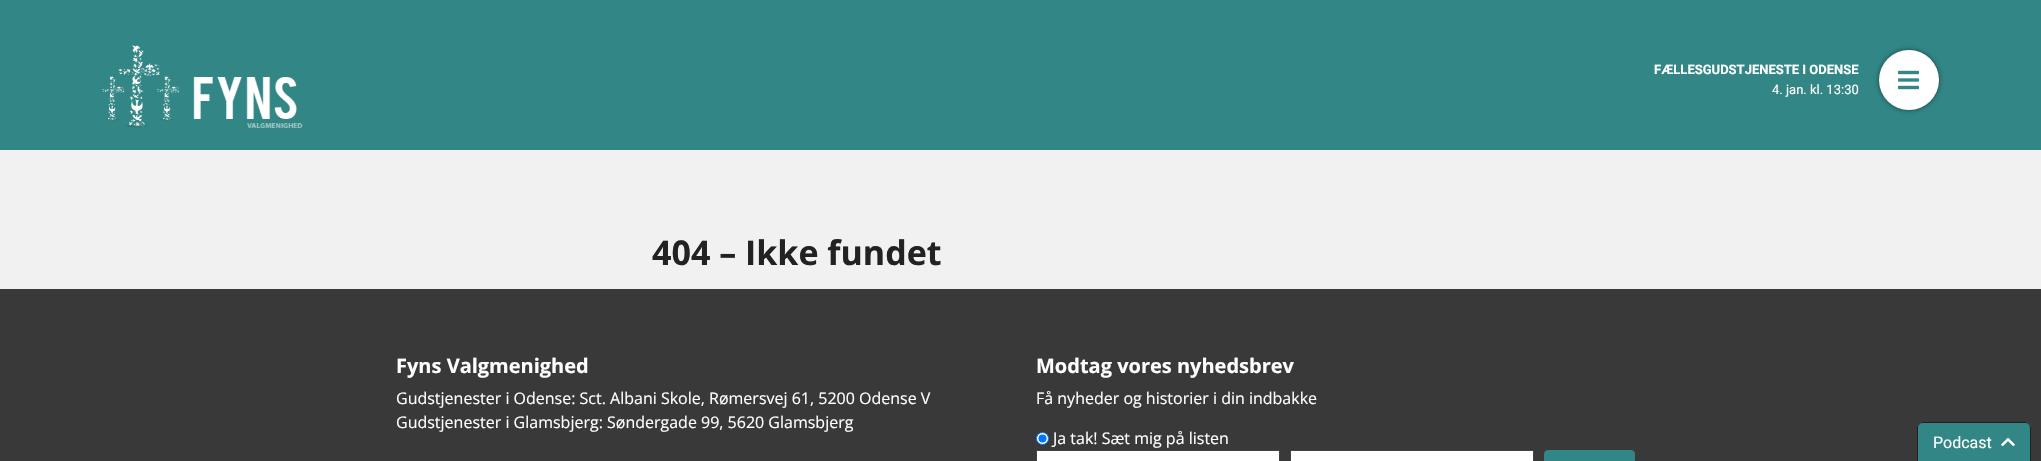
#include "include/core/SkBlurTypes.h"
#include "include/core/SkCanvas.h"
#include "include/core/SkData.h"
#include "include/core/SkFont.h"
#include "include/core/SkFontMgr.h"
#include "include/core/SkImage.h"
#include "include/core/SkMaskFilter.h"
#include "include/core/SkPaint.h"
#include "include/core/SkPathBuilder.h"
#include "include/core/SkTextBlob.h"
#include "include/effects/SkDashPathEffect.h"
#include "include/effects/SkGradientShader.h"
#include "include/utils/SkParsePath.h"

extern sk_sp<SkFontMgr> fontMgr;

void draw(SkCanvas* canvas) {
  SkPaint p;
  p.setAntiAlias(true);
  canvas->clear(SkColorSetRGB(241, 241, 241));
  p.setColor(SkColorSetRGB(50, 134, 133));
  canvas->drawRect(SkRect::MakeLTRB(0, 0, 2041, 150), p);
  canvas->drawImageRect(SkImages::DeferredFromEncodedData(SkData::MakeFromFileName("images/1.png")), SkRect::MakeLTRB(102, 45, 303, 128), SkSamplingOptions());
  p.setColor(SkColorSetARGB(128, 0, 0, 0));
  p.setMaskFilter(SkMaskFilter::MakeBlur(kNormal_SkBlurStyle, 2.5f));
  canvas->drawRoundRect(SkRect::MakeLTRB(1879, 50, 1939, 110), 30, 30, p);
  p.setMaskFilter(nullptr);
  p.setColor(SK_ColorWHITE);
  canvas->drawCircle(1909, 80, 30, p);
  canvas->drawImageRect(SkImages::DeferredFromEncodedData(SkData::MakeFromFileName("images/2.png")), SkRect::MakeLTRB(1898, 70, 1919, 90), SkSamplingOptions());
  p.setColor(SkColorSetRGB(57, 57, 58));
  canvas->drawRect(SkRect::MakeLTRB(0, 289, 2041, 461), p);
  p.setColor(SK_ColorWHITE);
  canvas->drawCircle(1042.5f, 438.5f, 6, p);
  p.setStyle(SkPaint::kStroke_Style);
  p.setStrokeWidth(1);
  p.setColor(SkColorSetRGB(0, 117, 255));
  canvas->drawCircle(1042.5f, 438.5f, 6, p);
  p.setStyle(SkPaint::kFill_Style);
  canvas->drawCircle(1042.5f, 438.5f, 4, p);
  p.setColor(SK_ColorWHITE);
  canvas->drawRect(SkRect::MakeLTRB(1036.5f, 450.5f, 1279.5f, 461.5f), p);
  p.setStyle(SkPaint::kStroke_Style);
  p.setColor(SkColorSetRGB(68, 68, 68));
  canvas->drawRect(SkRect::MakeLTRB(1036.5f, 450.5f, 1279.5f, 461.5f), p);
  p.setStyle(SkPaint::kFill_Style);
  p.setColor(SK_ColorWHITE);
  canvas->drawRect(SkRect::MakeLTRB(1290.5f, 450.5f, 1533.5f, 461.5f), p);
  p.setStyle(SkPaint::kStroke_Style);
  p.setColor(SkColorSetRGB(68, 68, 68));
  canvas->drawRect(SkRect::MakeLTRB(1290.5f, 450.5f, 1533.5f, 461.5f), p);
  p.setStyle(SkPaint::kFill_Style);
  p.setColor(SkColorSetRGB(50, 134, 133));
  canvas->drawRoundRect(SkRect::MakeLTRB(1544.5f, 450.5f, 1634.5f, 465.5f), 3.5f, 3.5f, p);
  p.setStyle(SkPaint::kStroke_Style);
  canvas->drawRoundRect(SkRect::MakeLTRB(1544.5f, 450.5f, 1634.5f, 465.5f), 3.5f, 3.5f, p);
  p.setStyle(SkPaint::kFill_Style);
  canvas->drawPath(SkPathBuilder().moveTo(1923, 422).lineTo(2025, 422).cubicTo(2028.5f, 422, 2031, 424.5f, 2031, 428).lineTo(2031, 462).lineTo(1917, 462).lineTo(1917, 428).cubicTo(1917, 424.5f, 1919.5f, 422, 1923, 422).close().detach(), p);
  p.setColor(SkColorSetRGB(31, 31, 31));
  canvas->drawPath(SkPathBuilder(SkPathFillType::kEvenOdd).moveTo(1923, 422).lineTo(2025, 422).cubicTo(2028, 422, 2031, 425, 2031, 428).lineTo(2031, 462).lineTo(1917, 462).lineTo(1917, 428).cubicTo(1917, 425, 1920, 422, 1923, 422).close().moveTo(1923, 423).lineTo(2025, 423).cubicTo(2028, 423, 2030, 425, 2030, 428).lineTo(2030, 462).lineTo(1918, 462).lineTo(1918, 428).cubicTo(1918, 425, 1920, 423, 1923, 423).close().detach(), p);
  canvas->drawImageRect(SkImages::DeferredFromEncodedData(SkData::MakeFromFileName("images/3.png")), SkRect::MakeLTRB(2001, 437, 2015, 447), SkSamplingOptions());
  SkFont font1(fontMgr->matchFamilyStyle("Roboto", SkFontStyle::Bold()), 13);
  font1.setSubpixel(true);
  p.setColor(SK_ColorWHITE);
  canvas->drawString("FÆLLESGUDSTJENESTE I ODENSE", 1654, 74, font1, p);
  SkFont font2(fontMgr->matchFamilyStyle("Roboto", SkFontStyle::Normal()), 13);
  font2.setSubpixel(true);
  canvas->drawString("4. jan. kl. 13:30", 1772, 94, font2, p);
  SkFont font3(fontMgr->matchFamilyStyle("Open Sans", SkFontStyle::Bold()), 34);
  font3.setSubpixel(true);
  p.setColor(SkColorSetRGB(34, 34, 34));
  canvas->drawString("404 – Ikke fundet", 652, 265, font3, p);
  SkFont font4(fontMgr->matchFamilyStyle("Open Sans", SkFontStyle::Bold()), 20);
  font4.setSubpixel(true);
  p.setColor(SK_ColorWHITE);
  canvas->drawString("Fyns Valgmenighed", 396, 373, font4, p);
  SkFont font5(fontMgr->matchFamilyStyle("Open Sans", SkFontStyle::Normal()), 16);
  font5.setSubpixel(true);
  canvas->drawString("Gudstjenester i Odense: Sct. Albani Skole, Rømersvej 61, 5200 Odense V", 396, 404, font5, p);
  canvas->drawString("Gudstjenester i Glamsbjerg: Søndergade 99, 5620 Glamsbjerg", 396, 428, font5, p);
  canvas->drawString("Modtag vores nyhedsbrev", 1036, 373, font4, p);
  canvas->drawString("Få nyheder og historier i din indbakke", 1036, 404, font5, p);
  canvas->drawString("Ja tak! Sæt mig på listen", 1053, 444, font5, p);
  SkFont font6(fontMgr->matchFamilyStyle("Roboto", SkFontStyle::Normal()), 16);
  font6.setSubpixel(true);
  canvas->drawString("Podcast", 1933, 448, font6, p);
}
